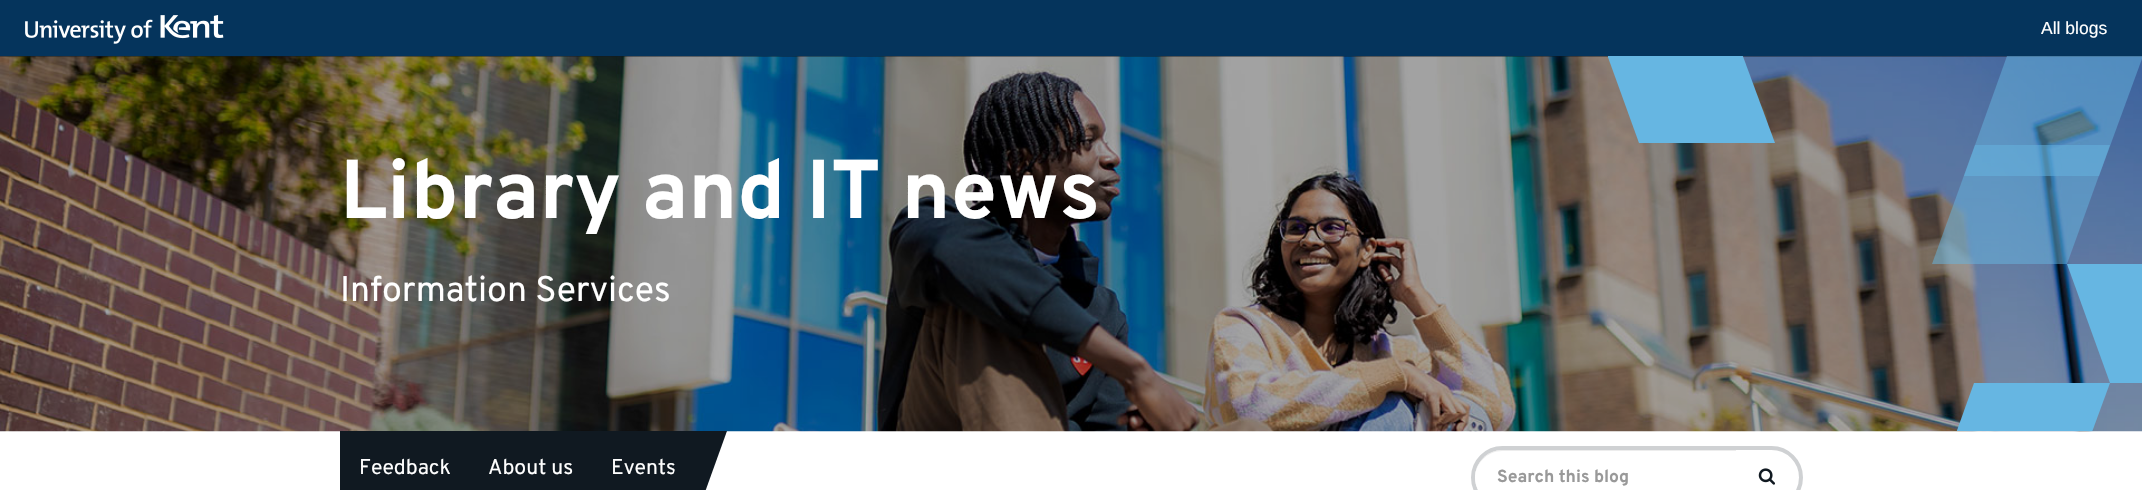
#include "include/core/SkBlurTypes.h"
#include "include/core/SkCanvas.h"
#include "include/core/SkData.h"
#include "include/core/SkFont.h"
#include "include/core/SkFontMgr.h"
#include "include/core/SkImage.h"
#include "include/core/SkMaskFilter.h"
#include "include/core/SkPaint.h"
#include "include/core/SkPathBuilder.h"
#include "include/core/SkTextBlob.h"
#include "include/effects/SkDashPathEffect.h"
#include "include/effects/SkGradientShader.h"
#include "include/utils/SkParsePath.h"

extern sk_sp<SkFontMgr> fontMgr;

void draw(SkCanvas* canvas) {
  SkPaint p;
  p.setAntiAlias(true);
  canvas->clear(SK_ColorWHITE);
  p.setColor(SkColorSetRGB(5, 52, 92));
  canvas->drawRect(SkRect::MakeLTRB(0, 0, 2142, 56), p);
  canvas->drawImageRect(SkImages::DeferredFromEncodedData(SkData::MakeFromFileName("images/1.png")), SkRect::MakeLTRB(25, 15, 224, 44), SkSamplingOptions());
  p.setColor(SkColorSetRGB(16, 25, 33));
  canvas->drawRect(SkRect::MakeLTRB(0, 56, 2142, 57), p);
  canvas->drawImageRect(SkImages::DeferredFromEncodedData(SkData::MakeFromFileName("images/2.png")), SkRect::MakeLTRB(0, 56, 2142, 432), SkSamplingOptions());
  canvas->save();
  canvas->clipRect(SkRect::MakeLTRB(1608, 56, 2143, 431));
  p.setColor(SkColorSetRGB(102, 182, 226));
  canvas->drawPath(SkPathBuilder().moveTo(1596, 24).lineTo(1731, 24).lineTo(1775, 143).lineTo(1639, 143).close().detach(), p);
  canvas->restore();
  canvas->drawPath(SkPathBuilder().moveTo(2067, 264).lineTo(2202, 264).lineTo(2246, 383).lineTo(2110, 383).close().detach(), p);
  p.setColor(SkColorSetARGB(128, 102, 182, 226));
  canvas->drawPath(SkPathBuilder().moveTo(1964, 176).lineTo(2099, 176).lineTo(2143, 56).lineTo(2007, 56).close().detach(), p);
  canvas->drawPath(SkPathBuilder().moveTo(1932, 264).lineTo(2067, 264).lineTo(2110, 145).lineTo(1975, 145).close().detach(), p);
  canvas->save();
  canvas->clipRect(SkRect::MakeLTRB(1608, 56, 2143, 431));
  p.setColor(SkColorSetRGB(102, 182, 226));
  canvas->drawPath(SkPathBuilder().moveTo(1931, 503).lineTo(2066, 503).lineTo(2110, 383).lineTo(1974, 383).close().detach(), p);
  canvas->restore();
  p.setColor(SkColorSetRGB(16, 25, 33));
  canvas->drawRect(SkRect::MakeLTRB(340, 431, 689, 490), p);
  p.setStyle(SkPaint::kStroke_Style);
  p.setStrokeWidth(4);
  p.setColor(SkColorSetRGB(207, 209, 211));
  canvas->drawRoundRect(SkRect::MakeLTRB(1473, 448, 1801, 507), 29.5f, 29.5f, p);
  p.setStyle(SkPaint::kFill_Style);
  p.setColor(SK_ColorWHITE);
  canvas->drawPath(SkPathBuilder().moveTo(1502.5f, 450).lineTo(1736, 450).lineTo(1736, 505).lineTo(1502.5f, 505).cubicTo(1487.5f, 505, 1475, 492.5f, 1475, 477.5f).cubicTo(1475, 462.5f, 1487.5f, 450, 1502.5f, 450).close().detach(), p);
  p.setColor(SkColorSetARGB(18, 0, 0, 0));
  canvas->drawPath(SkPathBuilder().moveTo(1502, 451).lineTo(1736, 451).lineTo(1736, 450).lineTo(1502, 450).cubicTo(1487, 450, 1475, 462, 1475, 478).cubicTo(1475, 464, 1487, 451, 1502, 451).close().detach(), p);
  canvas->drawImageRect(SkImages::DeferredFromEncodedData(SkData::MakeFromFileName("images/3.png")), SkRect::MakeLTRB(1758, 468, 1775, 485), SkSamplingOptions());
  SkFont font1(fontMgr->matchFamilyStyle("Liberation Sans", SkFontStyle::Normal()), 17.5f);
  font1.setSubpixel(true);
  p.setColor(SK_ColorWHITE);
  canvas->drawString("All blogs", 2041, 34, font1, p);
  SkFont font2(fontMgr->matchFamilyStyle("Overpass", SkFontStyle::Bold()), 83.1f);
  font2.setSubpixel(true);
  canvas->drawString("Library and IT news", 340, 218, font2, p);
  SkFont font3(fontMgr->matchFamilyStyle("Overpass", SkFontStyle::Normal()), 35.6f);
  font3.setSubpixel(true);
  canvas->drawString("Information Services", 340, 301, font3, p);
  SkFont font4(fontMgr->matchFamilyStyle("Overpass", SkFontStyle::Normal()), 21.25f);
  font4.setSubpixel(true);
  canvas->drawString("Feedback", 359, 474, font4, p);
  canvas->drawString("About us", 488, 474, font4, p);
  canvas->drawString("Events", 611, 474, font4, p);
  p.setColor(SkColorSetRGB(16, 25, 33));
  canvas->drawPath(SkPathBuilder().moveTo(689, 431).lineTo(727, 431).lineTo(700, 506).lineTo(662, 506).close().detach(), p);
  SkFont font5(fontMgr->matchFamilyStyle("Overpass", SkFontStyle::Bold()), 17.5f);
  font5.setSubpixel(true);
  p.setColor(SkColorSetRGB(153, 153, 153));
  canvas->drawString("Search this blog", 1497, 482, font5, p);
}
